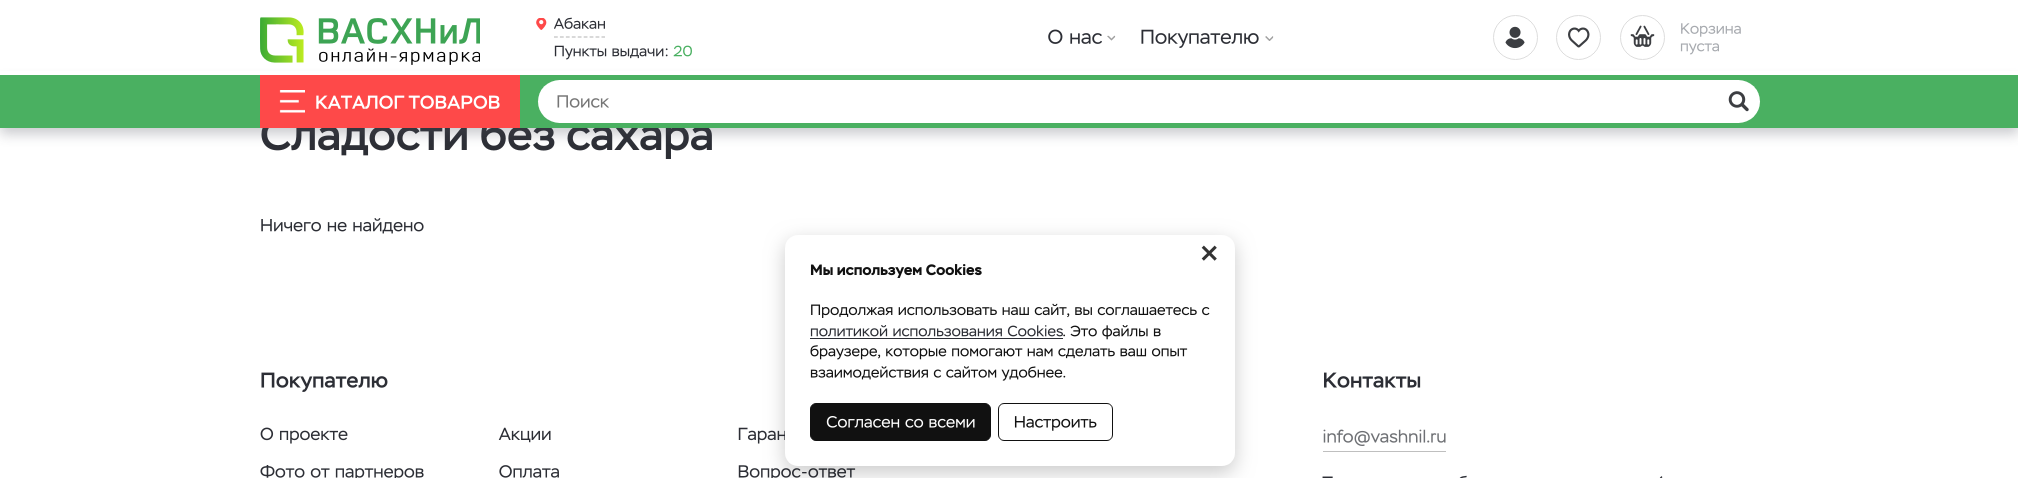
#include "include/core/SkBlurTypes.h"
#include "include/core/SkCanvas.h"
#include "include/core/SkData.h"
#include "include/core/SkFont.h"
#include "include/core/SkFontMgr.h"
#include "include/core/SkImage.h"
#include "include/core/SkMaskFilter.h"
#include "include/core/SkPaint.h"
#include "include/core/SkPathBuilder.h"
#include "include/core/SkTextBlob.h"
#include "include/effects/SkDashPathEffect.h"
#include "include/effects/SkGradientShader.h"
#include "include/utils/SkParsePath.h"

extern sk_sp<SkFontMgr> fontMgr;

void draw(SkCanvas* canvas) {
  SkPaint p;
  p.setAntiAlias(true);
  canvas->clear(SK_ColorWHITE);
  canvas->drawImageRect(SkImages::DeferredFromEncodedData(SkData::MakeFromFileName("images/19.png")), SkRect::MakeLTRB(261, 128, 712, 159), SkSamplingOptions());
  p.setColor(SkColorSetARGB(77, 76, 80, 94));
  p.setMaskFilter(SkMaskFilter::MakeBlur(kNormal_SkBlurStyle, 6));
  canvas->drawRect(SkRect::MakeLTRB(0, 81, 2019, 134), p);
  p.setMaskFilter(nullptr);
  p.setColor(SK_ColorWHITE);
  canvas->drawRect(SkRect::MakeLTRB(0, 71, 2018, 75), p);
  canvas->drawImageRect(SkImages::DeferredFromEncodedData(SkData::MakeFromFileName("images/1.png")), SkRect::MakeLTRB(260, 17, 480, 65), SkSamplingOptions());
  p.setStyle(SkPaint::kStroke_Style);
  p.setStrokeWidth(1);
  p.setColor(SkColorSetRGB(221, 221, 221));
  canvas->drawCircle(1515.5f, 37.5f, 22, p);
  canvas->drawImageRect(SkImages::DeferredFromEncodedData(SkData::MakeFromFileName("images/2.png")), SkRect::MakeLTRB(1505, 26, 1525, 49), SkSamplingOptions());
  canvas->drawCircle(1578.5f, 37.5f, 22, p);
  canvas->drawImageRect(SkImages::DeferredFromEncodedData(SkData::MakeFromFileName("images/3.png")), SkRect::MakeLTRB(1568, 27, 1590, 48), SkSamplingOptions());
  canvas->drawCircle(1642.5f, 37.5f, 22, p);
  canvas->drawImageRect(SkImages::DeferredFromEncodedData(SkData::MakeFromFileName("images/4.png")), SkRect::MakeLTRB(1630, 25, 1655, 47), SkSamplingOptions());
  canvas->drawImageRect(SkImages::DeferredFromEncodedData(SkData::MakeFromFileName("images/5.png")), SkRect::MakeLTRB(1681, 23, 1741, 37), SkSamplingOptions());
  canvas->drawImageRect(SkImages::DeferredFromEncodedData(SkData::MakeFromFileName("images/6.png")), SkRect::MakeLTRB(1680, 43, 1719, 55), SkSamplingOptions());
  canvas->drawImageRect(SkImages::DeferredFromEncodedData(SkData::MakeFromFileName("images/7.png")), SkRect::MakeLTRB(536, 18, 547, 30), SkSamplingOptions());
  p.setStrokeWidth(1.2f);
  p.setColor(SkColorSetRGB(179, 179, 179));
  p.setPathEffect(SkDashPathEffect::Make({{3.75f, 2.19f}}, 0));
  canvas->drawPath(SkPathBuilder().moveTo(554, 37).lineTo(605, 37).detach(), p);
  p.setPathEffect(nullptr);
  canvas->drawImageRect(SkImages::DeferredFromEncodedData(SkData::MakeFromFileName("images/8.png")), SkRect::MakeLTRB(554, 17, 605, 29), SkSamplingOptions());
  canvas->drawImageRect(SkImages::DeferredFromEncodedData(SkData::MakeFromFileName("images/9.png")), SkRect::MakeLTRB(554, 45, 668, 60), SkSamplingOptions());
  canvas->drawImageRect(SkImages::DeferredFromEncodedData(SkData::MakeFromFileName("images/10.png")), SkRect::MakeLTRB(673, 45, 692, 57), SkSamplingOptions());
  canvas->drawImageRect(SkImages::DeferredFromEncodedData(SkData::MakeFromFileName("images/11.png")), SkRect::MakeLTRB(1048, 29, 1102, 44), SkSamplingOptions());
  canvas->drawImageRect(SkImages::DeferredFromEncodedData(SkData::MakeFromFileName("images/12.png")), SkRect::MakeLTRB(1107, 35, 1116, 41), SkSamplingOptions());
  canvas->drawImageRect(SkImages::DeferredFromEncodedData(SkData::MakeFromFileName("images/13.png")), SkRect::MakeLTRB(1141, 29, 1259, 48), SkSamplingOptions());
  canvas->drawImageRect(SkImages::DeferredFromEncodedData(SkData::MakeFromFileName("images/14.png")), SkRect::MakeLTRB(1265, 36, 1274, 41), SkSamplingOptions());
  p.setStyle(SkPaint::kFill_Style);
  p.setColor(SkColorSetRGB(74, 176, 97));
  canvas->drawRect(SkRect::MakeLTRB(0, 75, 2018, 128), p);
  p.setColor(SkColorSetRGB(254, 73, 73));
  canvas->drawRect(SkRect::MakeLTRB(260, 75, 520, 128), p);
  canvas->drawImageRect(SkImages::DeferredFromEncodedData(SkData::MakeFromFileName("images/15.png")), SkRect::MakeLTRB(279, 90, 305, 113), SkSamplingOptions());
  canvas->drawImageRect(SkImages::DeferredFromEncodedData(SkData::MakeFromFileName("images/16.png")), SkRect::MakeLTRB(316, 95, 500, 109), SkSamplingOptions());
  p.setColor(SK_ColorWHITE);
  canvas->drawRoundRect(SkRect::MakeLTRB(538, 80, 1760, 123), 21.5f, 21.5f, p);
  canvas->drawImageRect(SkImages::DeferredFromEncodedData(SkData::MakeFromFileName("images/17.png")), SkRect::MakeLTRB(557, 95, 609, 108), SkSamplingOptions());
  canvas->drawImageRect(SkImages::DeferredFromEncodedData(SkData::MakeFromFileName("images/18.png")), SkRect::MakeLTRB(1728, 91, 1749, 112), SkSamplingOptions());
  canvas->drawImageRect(SkImages::DeferredFromEncodedData(SkData::MakeFromFileName("images/20.png")), SkRect::MakeLTRB(261, 218, 424, 234), SkSamplingOptions());
  canvas->drawImageRect(SkImages::DeferredFromEncodedData(SkData::MakeFromFileName("images/21.png")), SkRect::MakeLTRB(261, 372, 388, 392), SkSamplingOptions());
  canvas->drawImageRect(SkImages::DeferredFromEncodedData(SkData::MakeFromFileName("images/22.png")), SkRect::MakeLTRB(260, 427, 348, 444), SkSamplingOptions());
  canvas->drawImageRect(SkImages::DeferredFromEncodedData(SkData::MakeFromFileName("images/23.png")), SkRect::MakeLTRB(498, 427, 551, 443), SkSamplingOptions());
  canvas->drawImageRect(SkImages::DeferredFromEncodedData(SkData::MakeFromFileName("images/24.png")), SkRect::MakeLTRB(738, 427, 785, 444), SkSamplingOptions());
  canvas->drawImageRect(SkImages::DeferredFromEncodedData(SkData::MakeFromFileName("images/25.png")), SkRect::MakeLTRB(260, 465, 424, 478), SkSamplingOptions());
  canvas->drawImageRect(SkImages::DeferredFromEncodedData(SkData::MakeFromFileName("images/26.png")), SkRect::MakeLTRB(499, 465, 559, 478), SkSamplingOptions());
  canvas->drawImageRect(SkImages::DeferredFromEncodedData(SkData::MakeFromFileName("images/27.png")), SkRect::MakeLTRB(738, 465, 856, 478), SkSamplingOptions());
  canvas->drawImageRect(SkImages::DeferredFromEncodedData(SkData::MakeFromFileName("images/28.png")), SkRect::MakeLTRB(1324, 372, 1421, 388), SkSamplingOptions());
  canvas->drawImageRect(SkImages::DeferredFromEncodedData(SkData::MakeFromFileName("images/29.png")), SkRect::MakeLTRB(1323, 429, 1446, 446), SkSamplingOptions());
  p.setColor(SkColorSetRGB(191, 191, 191));
  canvas->drawRect(SkRect::MakeLTRB(1323, 451, 1446, 452), p);
  canvas->drawImageRect(SkImages::DeferredFromEncodedData(SkData::MakeFromFileName("images/30.png")), SkRect::MakeLTRB(1322, 475, 1663, 478), SkSamplingOptions());
  p.setColor(SkColorSetARGB(51, 0, 0, 0));
  p.setMaskFilter(SkMaskFilter::MakeBlur(kNormal_SkBlurStyle, 9.5f));
  canvas->drawRoundRect(SkRect::MakeLTRB(785, 241, 1235, 473), 13, 13, p);
  p.setMaskFilter(nullptr);
  p.setColor(SK_ColorWHITE);
  canvas->drawRoundRect(SkRect::MakeLTRB(785, 235, 1235, 466), 13, 13, p);
  canvas->drawImageRect(SkImages::DeferredFromEncodedData(SkData::MakeFromFileName("images/31.png")), SkRect::MakeLTRB(1201, 245, 1217, 261), SkSamplingOptions());
  canvas->drawImageRect(SkImages::DeferredFromEncodedData(SkData::MakeFromFileName("images/32.png")), SkRect::MakeLTRB(810, 264, 982, 278), SkSamplingOptions());
  canvas->drawImageRect(SkImages::DeferredFromEncodedData(SkData::MakeFromFileName("images/33.png")), SkRect::MakeLTRB(811, 303, 1210, 318), SkSamplingOptions());
  canvas->drawImageRect(SkImages::DeferredFromEncodedData(SkData::MakeFromFileName("images/34.png")), SkRect::MakeLTRB(810, 325, 1063, 337), SkSamplingOptions());
  canvas->drawImageRect(SkImages::DeferredFromEncodedData(SkData::MakeFromFileName("images/35.png")), SkRect::MakeLTRB(1063, 325, 1161, 340), SkSamplingOptions());
  p.setColor(SkColorSetRGB(44, 46, 53));
  canvas->drawRect(SkRect::MakeLTRB(810, 338, 1063, 339), p);
  canvas->drawImageRect(SkImages::DeferredFromEncodedData(SkData::MakeFromFileName("images/36.png")), SkRect::MakeLTRB(810, 345, 1188, 360), SkSamplingOptions());
  canvas->drawImageRect(SkImages::DeferredFromEncodedData(SkData::MakeFromFileName("images/37.png")), SkRect::MakeLTRB(810, 366, 1066, 381), SkSamplingOptions());
  p.setColor(SkColorSetRGB(17, 17, 17));
  canvas->drawRoundRect(SkRect::MakeLTRB(810.5f, 403.5f, 990.5f, 440.5f), 5.5f, 5.5f, p);
  p.setStyle(SkPaint::kStroke_Style);
  p.setStrokeWidth(1);
  canvas->drawRoundRect(SkRect::MakeLTRB(810.5f, 403.5f, 990.5f, 440.5f), 5.5f, 5.5f, p);
  canvas->drawImageRect(SkImages::DeferredFromEncodedData(SkData::MakeFromFileName("images/38.png")), SkRect::MakeLTRB(826, 416, 975, 428), SkSamplingOptions());
  canvas->drawRoundRect(SkRect::MakeLTRB(998.5f, 403.5f, 1112.5f, 440.5f), 5.5f, 5.5f, p);
  canvas->drawImageRect(SkImages::DeferredFromEncodedData(SkData::MakeFromFileName("images/39.png")), SkRect::MakeLTRB(1014, 416, 1097, 431), SkSamplingOptions());
}
